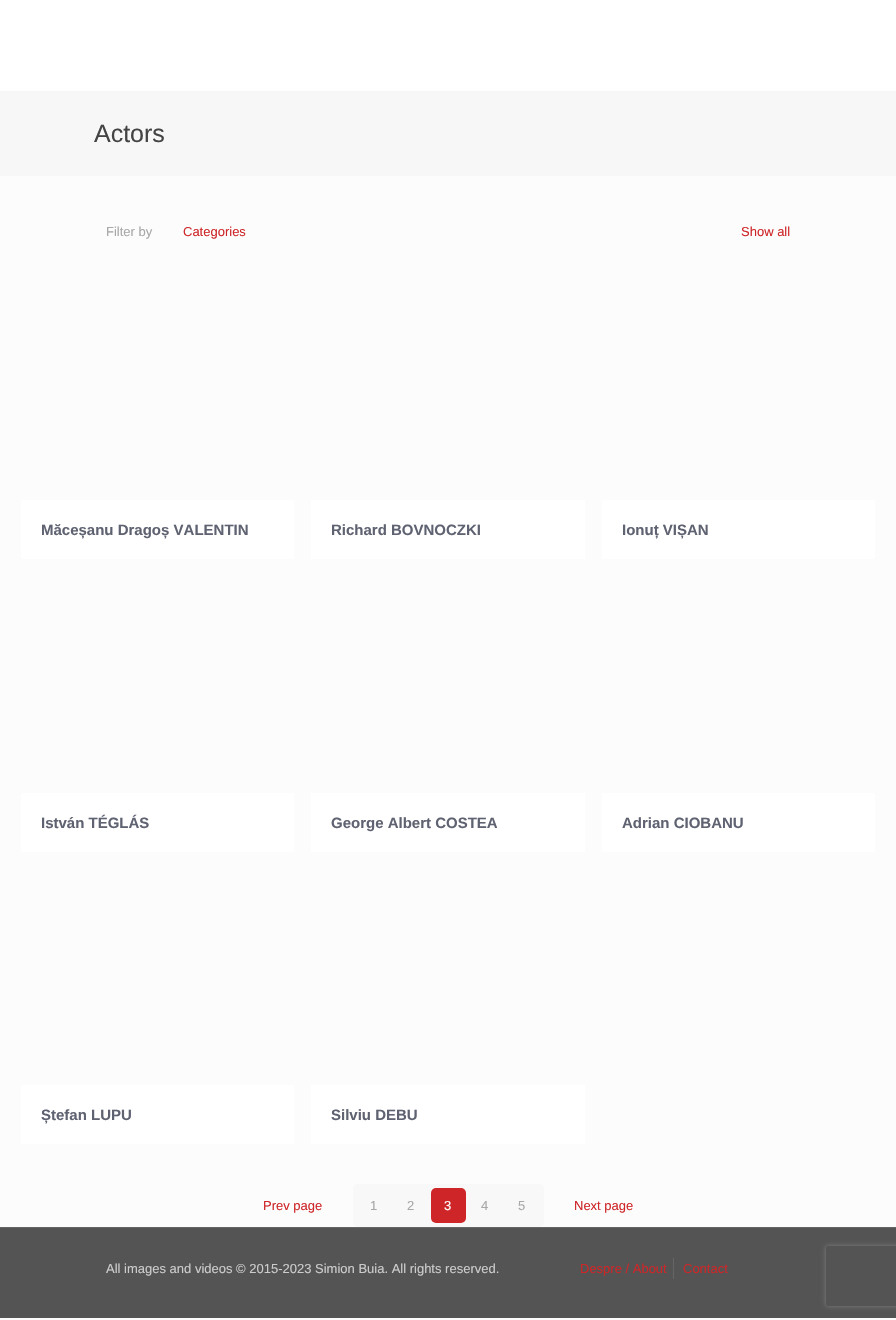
#include "include/core/SkBlurTypes.h"
#include "include/core/SkCanvas.h"
#include "include/core/SkData.h"
#include "include/core/SkFont.h"
#include "include/core/SkFontMgr.h"
#include "include/core/SkImage.h"
#include "include/core/SkMaskFilter.h"
#include "include/core/SkPaint.h"
#include "include/core/SkPathBuilder.h"
#include "include/core/SkTextBlob.h"
#include "include/effects/SkDashPathEffect.h"
#include "include/effects/SkGradientShader.h"
#include "include/utils/SkParsePath.h"

extern sk_sp<SkFontMgr> fontMgr;

void draw(SkCanvas* canvas) {
  SkPaint p;
  p.setAntiAlias(true);
  canvas->clear(SkColorSetRGB(252, 252, 252));
  p.setColor(SK_ColorWHITE);
  canvas->drawRect(SkRect::MakeLTRB(0, 0, 896, 91), p);
  p.setColor(SkColorSetRGB(247, 247, 247));
  canvas->drawRect(SkRect::MakeLTRB(0, 91, 896, 176), p);
  p.setColor(SK_ColorWHITE);
  canvas->drawRect(SkRect::MakeLTRB(21, 500, 294, 559), p);
  canvas->drawRect(SkRect::MakeLTRB(311, 500, 585, 559), p);
  canvas->drawRect(SkRect::MakeLTRB(602, 500, 875, 559), p);
  canvas->drawRect(SkRect::MakeLTRB(21, 793, 294, 852), p);
  canvas->drawRect(SkRect::MakeLTRB(311, 793, 585, 852), p);
  canvas->drawRect(SkRect::MakeLTRB(602, 793, 875, 852), p);
  canvas->drawRect(SkRect::MakeLTRB(21, 1085, 294, 1144), p);
  canvas->drawRect(SkRect::MakeLTRB(311, 1085, 585, 1144), p);
  p.setColor(SkColorSetRGB(248, 248, 248));
  canvas->drawRoundRect(SkRect::MakeLTRB(353, 1184, 544, 1227), 5, 5, p);
  p.setColor(SkColorSetRGB(206, 38, 40));
  canvas->drawRoundRect(SkRect::MakeLTRB(431, 1188, 466, 1223), 5, 5, p);
  p.setColor(SkColorSetRGB(84, 84, 84));
  canvas->drawRect(SkRect::MakeLTRB(0, 1228, 896, 1318), p);
  p.setColor(SkColorSetRGB(101, 101, 101));
  canvas->drawRect(SkRect::MakeLTRB(0, 1227, 896, 1228), p);
  canvas->drawRect(SkRect::MakeLTRB(673, 1258, 674, 1279), p);
  canvas->save();
  canvas->clipPath(SkPathBuilder(SkPathFillType::kEvenOdd).moveTo(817, 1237).lineTo(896, 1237).lineTo(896, 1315).lineTo(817, 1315).close().moveTo(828, 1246).lineTo(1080, 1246).cubicTo(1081, 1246, 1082, 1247, 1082, 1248).lineTo(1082, 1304).cubicTo(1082, 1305, 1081, 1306, 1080, 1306).lineTo(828, 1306).cubicTo(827, 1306, 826, 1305, 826, 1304).lineTo(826, 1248).cubicTo(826, 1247, 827, 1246, 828, 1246).close().detach(), true);
  p.setColor(SkColorSetRGB(128, 128, 128));
  p.setMaskFilter(SkMaskFilter::MakeBlur(kNormal_SkBlurStyle, 2.5f));
  canvas->drawRoundRect(SkRect::MakeLTRB(826, 1246, 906, 1306), 2, 2, p);
  p.setMaskFilter(nullptr);
  canvas->restore();
  SkFont font1(fontMgr->matchFamilyStyle("Liberation Sans", SkFontStyle::Normal()), 25);
  font1.setSubpixel(true);
  p.setColor(SkColorSetRGB(68, 68, 68));
  canvas->drawString("Actors", 94, 142, font1, p);
  SkFont font2(fontMgr->matchFamilyStyle("Liberation Sans", SkFontStyle::Normal()), 13);
  font2.setSubpixel(true);
  p.setColor(SkColorSetRGB(168, 168, 168));
  canvas->drawString("Filter by", 106, 236, font2, p);
  p.setColor(SkColorSetRGB(206, 38, 40));
  canvas->drawString("Categories", 183, 236, font2, p);
  canvas->drawString("Show all", 741, 236, font2, p);
  SkFont font3(fontMgr->matchFamilyStyle("Liberation Sans", SkFontStyle::Bold()), 15);
  font3.setSubpixel(true);
  p.setColor(SkColorSetRGB(95, 98, 113));
  canvas->drawString("Măceșanu Dragoș VALENTIN", 41, 535, font3, p);
  canvas->drawString("Richard BOVNOCZKI", 331, 535, font3, p);
  canvas->drawString("Ionuț VIȘAN", 622, 535, font3, p);
  canvas->drawString("István TÉGLÁS", 41, 828, font3, p);
  canvas->drawString("George Albert COSTEA", 331, 828, font3, p);
  canvas->drawString("Adrian CIOBANU", 622, 828, font3, p);
  canvas->drawString("Ștefan LUPU", 41, 1120, font3, p);
  canvas->drawString("Silviu DEBU", 331, 1120, font3, p);
  p.setColor(SkColorSetRGB(206, 38, 40));
  canvas->drawString("Prev page", 263, 1210, font2, p);
  p.setColor(SkColorSetRGB(168, 168, 168));
  canvas->drawString("1", 370, 1210, font2, p);
  canvas->drawString("2", 407, 1210, font2, p);
  p.setColor(SK_ColorWHITE);
  canvas->drawString("3", 444, 1210, font2, p);
  p.setColor(SkColorSetRGB(168, 168, 168));
  canvas->drawString("4", 481, 1210, font2, p);
  canvas->drawString("5", 518, 1210, font2, p);
  p.setColor(SkColorSetRGB(206, 38, 40));
  canvas->drawString("Next page", 574, 1210, font2, p);
  p.setColor(SkColorSetRGB(204, 204, 204));
  canvas->drawString("All images and videos © 2015-2023 Simion Buia. All rights reserved.", 106, 1273, font2, p);
  p.setColor(SkColorSetRGB(206, 38, 40));
  canvas->drawString("Despre / About", 580, 1273, font2, p);
  canvas->drawString("Contact", 683, 1273, font2, p);
}
